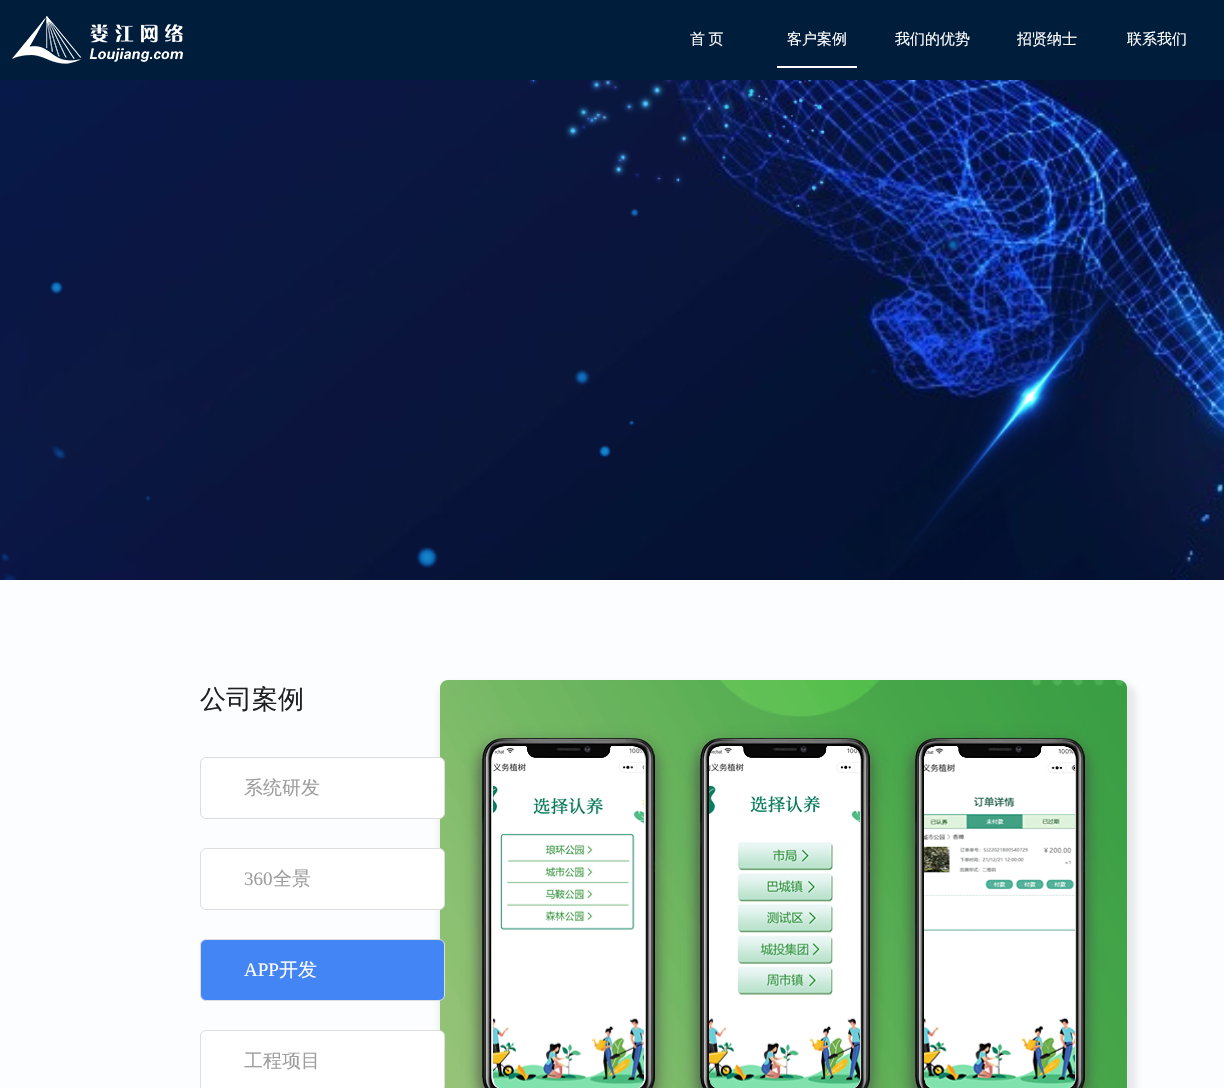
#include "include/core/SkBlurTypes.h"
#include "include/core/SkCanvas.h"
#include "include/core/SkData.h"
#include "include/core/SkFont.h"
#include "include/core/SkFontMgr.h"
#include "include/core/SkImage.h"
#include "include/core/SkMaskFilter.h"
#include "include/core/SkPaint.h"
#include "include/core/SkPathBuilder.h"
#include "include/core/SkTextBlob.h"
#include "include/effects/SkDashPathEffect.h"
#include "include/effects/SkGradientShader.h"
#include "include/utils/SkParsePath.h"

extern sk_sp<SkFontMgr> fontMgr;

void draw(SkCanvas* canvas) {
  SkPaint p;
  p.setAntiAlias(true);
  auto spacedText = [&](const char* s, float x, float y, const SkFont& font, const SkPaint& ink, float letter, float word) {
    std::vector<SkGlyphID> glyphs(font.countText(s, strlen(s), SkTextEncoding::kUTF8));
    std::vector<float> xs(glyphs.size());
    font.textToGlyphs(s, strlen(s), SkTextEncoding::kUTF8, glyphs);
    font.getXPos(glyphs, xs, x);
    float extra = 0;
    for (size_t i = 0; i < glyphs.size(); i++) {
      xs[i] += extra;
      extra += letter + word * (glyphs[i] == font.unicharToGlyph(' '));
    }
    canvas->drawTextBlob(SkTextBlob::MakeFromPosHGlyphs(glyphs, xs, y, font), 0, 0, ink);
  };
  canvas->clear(SkColorSetRGB(252, 253, 255));
  p.setColor(SkColorSetRGB(1, 29, 60));
  canvas->drawRect(SkRect::MakeLTRB(0, 0, 1224, 80), p);
  canvas->drawImageRect(SkImages::DeferredFromEncodedData(SkData::MakeFromFileName("images/1.png")), SkRect::MakeLTRB(12, 16, 183, 64), SkSamplingOptions());
  p.setColor(SK_ColorWHITE);
  canvas->drawRect(SkRect::MakeLTRB(777, 66, 857, 68), p);
  canvas->drawImageRect(SkImages::DeferredFromEncodedData(SkData::MakeFromFileName("images/2.png")), SkRect::MakeLTRB(0, 80, 1224, 580), SkSamplingOptions());
  p.setColor(SkColorSetARGB(26, 61, 62, 56));
  p.setMaskFilter(SkMaskFilter::MakeBlur(kNormal_SkBlurStyle, 3));
  canvas->drawRoundRect(SkRect::MakeLTRB(439, 683, 1136, 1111), 14, 14, p);
  p.setMaskFilter(nullptr);
  canvas->drawImageRect(SkImages::DeferredFromEncodedData(SkData::MakeFromFileName("images/3.png")), SkRect::MakeLTRB(440, 680, 1127, 1088), SkSamplingOptions());
  p.setColor(SK_ColorWHITE);
  canvas->drawRoundRect(SkRect::MakeLTRB(200.5f, 757.5f, 444.5f, 818.5f), 5.5f, 5.5f, p);
  p.setStyle(SkPaint::kStroke_Style);
  p.setStrokeWidth(1);
  p.setColor(SkColorSetRGB(222, 222, 222));
  canvas->drawRoundRect(SkRect::MakeLTRB(200.5f, 757.5f, 444.5f, 818.5f), 5.5f, 5.5f, p);
  p.setStyle(SkPaint::kFill_Style);
  p.setColor(SK_ColorWHITE);
  canvas->drawRoundRect(SkRect::MakeLTRB(200.5f, 848.5f, 444.5f, 909.5f), 5.5f, 5.5f, p);
  p.setStyle(SkPaint::kStroke_Style);
  p.setColor(SkColorSetRGB(222, 222, 222));
  canvas->drawRoundRect(SkRect::MakeLTRB(200.5f, 848.5f, 444.5f, 909.5f), 5.5f, 5.5f, p);
  p.setStyle(SkPaint::kFill_Style);
  p.setColor(SkColorSetRGB(67, 133, 245));
  canvas->drawRoundRect(SkRect::MakeLTRB(200.5f, 939.5f, 444.5f, 1000.5f), 5.5f, 5.5f, p);
  p.setStyle(SkPaint::kStroke_Style);
  p.setColor(SkColorSetRGB(222, 222, 222));
  canvas->drawRoundRect(SkRect::MakeLTRB(200.5f, 939.5f, 444.5f, 1000.5f), 5.5f, 5.5f, p);
  p.setStyle(SkPaint::kFill_Style);
  p.setColor(SK_ColorWHITE);
  canvas->drawRoundRect(SkRect::MakeLTRB(200.5f, 1030.5f, 444.5f, 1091.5f), 5.5f, 5.5f, p);
  p.setStyle(SkPaint::kStroke_Style);
  p.setColor(SkColorSetRGB(222, 222, 222));
  canvas->drawRoundRect(SkRect::MakeLTRB(200.5f, 1030.5f, 444.5f, 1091.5f), 5.5f, 5.5f, p);
  SkFont font1(fontMgr->matchFamilyStyle("WenQuanYi Zen Hei", SkFontStyle(500, SkFontStyle::kNormal_Width, SkFontStyle::kUpright_Slant)), 15);
  font1.setSubpixel(true);
  p.setStyle(SkPaint::kFill_Style);
  p.setColor(SK_ColorWHITE);
  spacedText("首 页", 690, 44, font1, p, 0, -1);
  canvas->drawString("客户案例", 787, 44, font1, p);
  canvas->drawString("我们的优势", 895, 44, font1, p);
  canvas->drawString("招贤纳士", 1017, 44, font1, p);
  canvas->drawString("联系我们", 1127, 44, font1, p);
  SkFont font2(fontMgr->matchFamilyStyle("WenQuanYi Zen Hei", SkFontStyle(500, SkFontStyle::kNormal_Width, SkFontStyle::kUpright_Slant)), 26);
  font2.setSubpixel(true);
  p.setColor(SkColorSetRGB(32, 32, 32));
  canvas->drawString("公司案例", 200, 708, font2, p);
  SkFont font3(fontMgr->matchFamilyStyle("WenQuanYi Zen Hei", SkFontStyle(500, SkFontStyle::kNormal_Width, SkFontStyle::kUpright_Slant)), 19);
  font3.setSubpixel(true);
  p.setColor(SkColorSetRGB(158, 158, 158));
  canvas->drawString("系统研发", 244, 794, font3, p);
  SkFont font4(fontMgr->matchFamilyStyle("Liberation Serif", SkFontStyle::Normal()), 19);
  font4.setSubpixel(true);
  canvas->drawString("360", 244, 885, font4, p);
  canvas->drawString("全景", 273, 885, font3, p);
  p.setColor(SK_ColorWHITE);
  canvas->drawString("APP", 244, 976, font4, p);
  canvas->drawString("开发", 279, 976, font3, p);
  p.setColor(SkColorSetRGB(158, 158, 158));
  canvas->drawString("工程项目", 244, 1067, font3, p);
}
